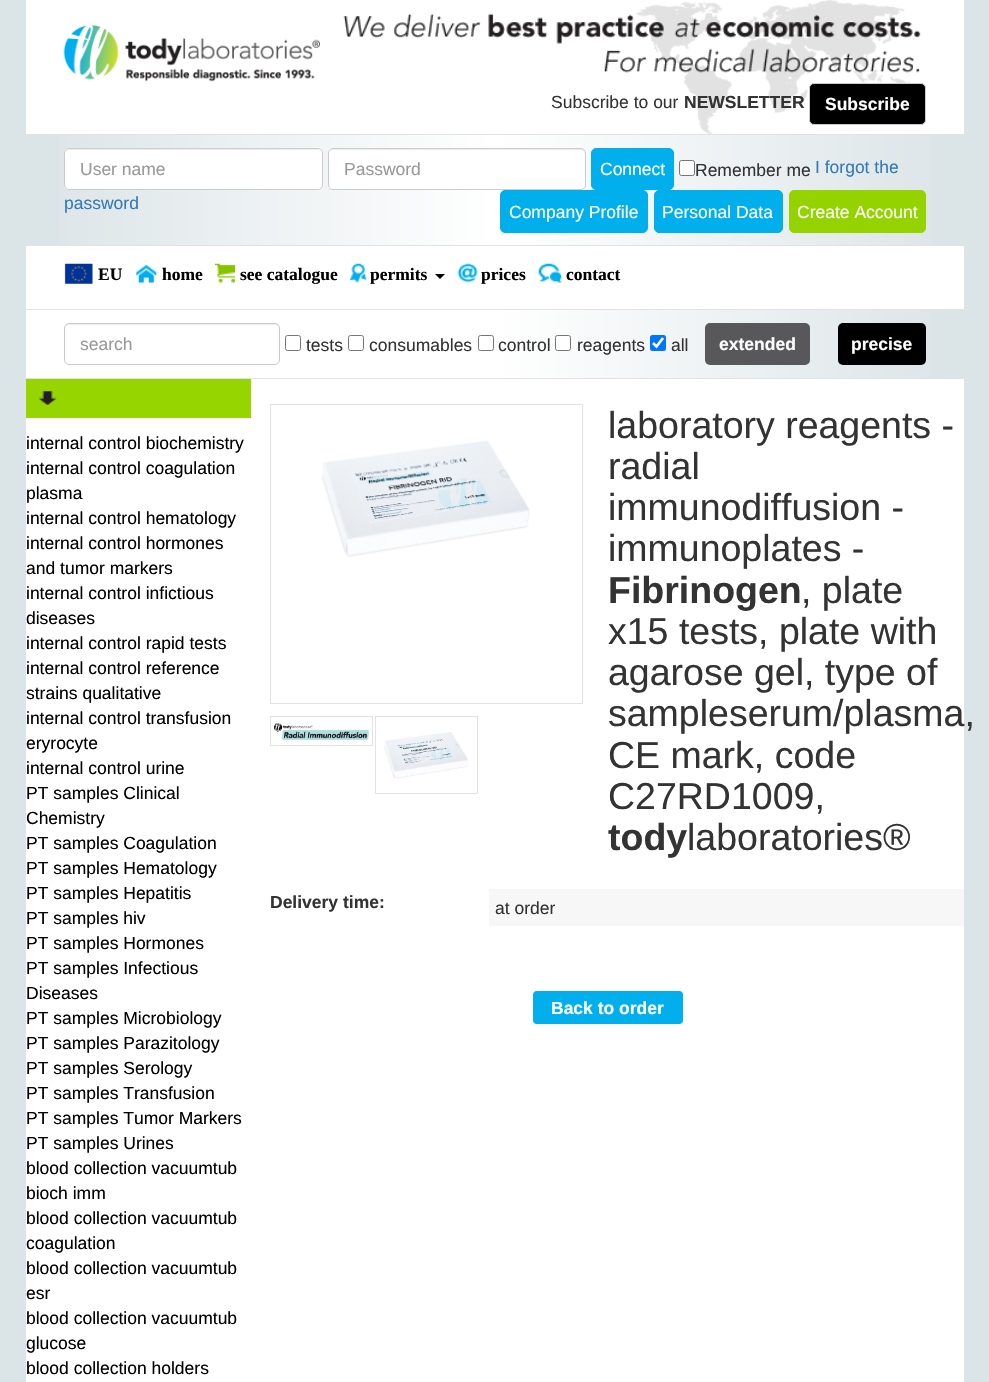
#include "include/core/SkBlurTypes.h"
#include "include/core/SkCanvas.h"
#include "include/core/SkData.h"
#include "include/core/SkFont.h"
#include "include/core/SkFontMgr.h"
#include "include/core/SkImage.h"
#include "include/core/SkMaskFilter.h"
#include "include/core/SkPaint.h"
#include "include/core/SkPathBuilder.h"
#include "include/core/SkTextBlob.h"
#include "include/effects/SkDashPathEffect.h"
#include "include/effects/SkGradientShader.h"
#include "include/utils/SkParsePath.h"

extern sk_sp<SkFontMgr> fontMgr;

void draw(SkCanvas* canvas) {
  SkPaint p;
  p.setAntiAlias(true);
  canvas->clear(SkColorSetRGB(219, 228, 231));
  p.setColor(SK_ColorWHITE);
  canvas->drawRect(SkRect::MakeLTRB(26, 0, 964, 134), p);
  canvas->drawImageRect(SkImages::DeferredFromEncodedData(SkData::MakeFromFileName("images/1.png")), SkRect::MakeLTRB(63, 25, 320, 82), SkSamplingOptions());
  canvas->drawImageRect(SkImages::DeferredFromEncodedData(SkData::MakeFromFileName("images/2.png")), SkRect::MakeLTRB(636, 0, 911, 134), SkSamplingOptions());
  canvas->drawImageRect(SkImages::DeferredFromEncodedData(SkData::MakeFromFileName("images/3.png")), SkRect::MakeLTRB(343, 13, 921, 73), SkSamplingOptions());
  p.setColor(SK_ColorBLACK);
  canvas->drawRoundRect(SkRect::MakeLTRB(809.5f, 83.5f, 925.5f, 124.5f), 4.5f, 4.5f, p);
  p.setStyle(SkPaint::kStroke_Style);
  p.setStrokeWidth(1);
  p.setColor(SkColorSetRGB(204, 204, 204));
  canvas->drawRoundRect(SkRect::MakeLTRB(809.5f, 83.5f, 925.5f, 124.5f), 4.5f, 4.5f, p);
  p.setStyle(SkPaint::kFill_Style);
  {
    const SkColor colors[] = {SkColorSetRGB(219, 228, 231), SK_ColorWHITE, SkColorSetRGB(219, 228, 231)};
    const float stops[] = {0, 0.5f, 1};
    const SkPoint ends[] = {{26, 190}, {964, 190}};
    p.setShader(SkGradientShader::MakeLinear(ends, colors, stops, 3, SkTileMode::kClamp));
    p.setAlpha(255);
  }
  canvas->drawRect(SkRect::MakeLTRB(59, 135, 931, 245), p);
  p.setShader(nullptr);
  p.setColor(SkColorSetRGB(226, 226, 226));
  canvas->drawRect(SkRect::MakeLTRB(26, 134, 964, 135), p);
  canvas->drawRect(SkRect::MakeLTRB(26, 245, 964, 246), p);
  p.setColor(SK_ColorWHITE);
  canvas->drawRoundRect(SkRect::MakeLTRB(64, 148, 323, 190), 5, 5, p);
  p.setColor(SkColorSetRGB(236, 236, 236));
  canvas->drawPath(SkPathBuilder().moveTo(69, 150).lineTo(318, 150).cubicTo(320, 150, 321, 152, 321, 154).lineTo(321, 153).cubicTo(321, 151, 319, 149, 317, 149).lineTo(69, 149).cubicTo(67, 149, 65, 151, 65, 153).lineTo(65, 154).cubicTo(65, 152, 67, 150, 69, 150).close().detach(), p);
  p.setStyle(SkPaint::kStroke_Style);
  p.setColor(SkColorSetRGB(204, 204, 204));
  canvas->drawRoundRect(SkRect::MakeLTRB(64.5f, 148.5f, 322.5f, 189.5f), 4.5f, 4.5f, p);
  p.setStyle(SkPaint::kFill_Style);
  p.setColor(SK_ColorWHITE);
  canvas->drawRoundRect(SkRect::MakeLTRB(328, 148, 586, 190), 5, 5, p);
  p.setColor(SkColorSetRGB(236, 236, 236));
  canvas->drawPath(SkPathBuilder().moveTo(332, 150).lineTo(582, 150).lineTo(584, 152).lineTo(585, 154).lineTo(585, 153).cubicTo(585, 151, 583, 149, 581, 149).lineTo(333, 149).cubicTo(331, 149, 329, 151, 329, 153).lineTo(329, 154).cubicTo(329, 152, 330, 150, 332, 150).close().detach(), p);
  p.setStyle(SkPaint::kStroke_Style);
  p.setColor(SkColorSetRGB(204, 204, 204));
  canvas->drawRoundRect(SkRect::MakeLTRB(328.5f, 148.5f, 585.5f, 189.5f), 4.5f, 4.5f, p);
  p.setStyle(SkPaint::kFill_Style);
  p.setColor(SkColorSetRGB(0, 175, 236));
  canvas->drawRoundRect(SkRect::MakeLTRB(591.5f, 148.5f, 673.5f, 189.5f), 4.5f, 4.5f, p);
  p.setStyle(SkPaint::kStroke_Style);
  canvas->drawRoundRect(SkRect::MakeLTRB(591.5f, 148.5f, 673.5f, 189.5f), 4.5f, 4.5f, p);
  p.setStyle(SkPaint::kFill_Style);
  p.setColor(SK_ColorWHITE);
  canvas->drawRoundRect(SkRect::MakeLTRB(679.5f, 160.5f, 694.5f, 175.5f), 2, 2, p);
  p.setStyle(SkPaint::kStroke_Style);
  p.setColor(SkColorSetRGB(118, 118, 118));
  canvas->drawRoundRect(SkRect::MakeLTRB(679.5f, 160.5f, 694.5f, 175.5f), 2, 2, p);
  p.setStyle(SkPaint::kFill_Style);
  p.setColor(SkColorSetRGB(0, 175, 236));
  canvas->drawRoundRect(SkRect::MakeLTRB(500.5f, 190.5f, 647.5f, 232.5f), 4.5f, 4.5f, p);
  p.setStyle(SkPaint::kStroke_Style);
  canvas->drawRoundRect(SkRect::MakeLTRB(500.5f, 190.5f, 647.5f, 232.5f), 4.5f, 4.5f, p);
  p.setStyle(SkPaint::kFill_Style);
  canvas->drawRoundRect(SkRect::MakeLTRB(654.5f, 190.5f, 782.5f, 232.5f), 4.5f, 4.5f, p);
  p.setStyle(SkPaint::kStroke_Style);
  canvas->drawRoundRect(SkRect::MakeLTRB(654.5f, 190.5f, 782.5f, 232.5f), 4.5f, 4.5f, p);
  p.setStyle(SkPaint::kFill_Style);
  p.setColor(SkColorSetRGB(149, 211, 0));
  canvas->drawRoundRect(SkRect::MakeLTRB(789.5f, 190.5f, 925.5f, 232.5f), 4.5f, 4.5f, p);
  p.setStyle(SkPaint::kStroke_Style);
  canvas->drawRoundRect(SkRect::MakeLTRB(789.5f, 190.5f, 925.5f, 232.5f), 4.5f, 4.5f, p);
  p.setStyle(SkPaint::kFill_Style);
  p.setColor(SK_ColorWHITE);
  canvas->drawRect(SkRect::MakeLTRB(26, 246, 964, 309), p);
  canvas->drawImageRect(SkImages::DeferredFromEncodedData(SkData::MakeFromFileName("images/4.png")), SkRect::MakeLTRB(64, 263, 93, 284), SkSamplingOptions());
  canvas->drawImageRect(SkImages::DeferredFromEncodedData(SkData::MakeFromFileName("images/5.png")), SkRect::MakeLTRB(136, 264, 157, 283), SkSamplingOptions());
  canvas->drawImageRect(SkImages::DeferredFromEncodedData(SkData::MakeFromFileName("images/6.png")), SkRect::MakeLTRB(215, 263, 235, 283), SkSamplingOptions());
  canvas->drawImageRect(SkImages::DeferredFromEncodedData(SkData::MakeFromFileName("images/7.png")), SkRect::MakeLTRB(350, 263, 367, 283), SkSamplingOptions());
  p.setColor(SK_ColorBLACK);
  canvas->drawPath(SkPathBuilder().moveTo(435, 274).lineTo(445, 274).lineTo(440, 279).close().detach(), p);
  canvas->drawImageRect(SkImages::DeferredFromEncodedData(SkData::MakeFromFileName("images/8.png")), SkRect::MakeLTRB(457, 263, 478, 283), SkSamplingOptions());
  canvas->drawImageRect(SkImages::DeferredFromEncodedData(SkData::MakeFromFileName("images/9.png")), SkRect::MakeLTRB(538, 263, 562, 283), SkSamplingOptions());
  {
    const SkColor colors[] = {SK_ColorWHITE, SK_ColorWHITE, SkColorSetRGB(219, 228, 231)};
    const float stops[] = {0, 0.5f, 1};
    const SkPoint ends[] = {{26, 344}, {964, 344}};
    p.setShader(SkGradientShader::MakeLinear(ends, colors, stops, 3, SkTileMode::kClamp));
    p.setAlpha(255);
  }
  canvas->drawRect(SkRect::MakeLTRB(26, 310, 931, 378), p);
  p.setShader(nullptr);
  p.setColor(SkColorSetRGB(226, 226, 226));
  canvas->drawRect(SkRect::MakeLTRB(26, 309, 964, 310), p);
  canvas->drawRect(SkRect::MakeLTRB(26, 378, 964, 379), p);
  p.setColor(SkColorSetRGB(236, 236, 236));
  canvas->drawPath(SkPathBuilder().moveTo(69, 325).lineTo(275, 325).cubicTo(277, 325, 279, 327, 279, 329).cubicTo(279, 326, 278, 324, 275, 324).lineTo(67, 324).cubicTo(65, 325, 65, 327, 65, 329).cubicTo(65, 327, 67, 325, 69, 325).close().detach(), p);
  p.setStyle(SkPaint::kStroke_Style);
  p.setColor(SkColorSetRGB(204, 204, 204));
  canvas->drawRoundRect(SkRect::MakeLTRB(64.5f, 323.5f, 279.5f, 364.5f), 4.5f, 4.5f, p);
  p.setColor(SkColorSetRGB(118, 118, 118));
  canvas->drawRoundRect(SkRect::MakeLTRB(285.5f, 335.5f, 300.5f, 350.5f), 2, 2, p);
  canvas->drawRoundRect(SkRect::MakeLTRB(348.5f, 335.5f, 363.5f, 350.5f), 2, 2, p);
  canvas->drawRoundRect(SkRect::MakeLTRB(478.5f, 335.5f, 493.5f, 350.5f), 2, 2, p);
  p.setStyle(SkPaint::kFill_Style);
  p.setColor(SK_ColorWHITE);
  canvas->drawRoundRect(SkRect::MakeLTRB(555.5f, 335.5f, 570.5f, 350.5f), 2, 2, p);
  p.setStyle(SkPaint::kStroke_Style);
  p.setColor(SkColorSetRGB(118, 118, 118));
  canvas->drawRoundRect(SkRect::MakeLTRB(555.5f, 335.5f, 570.5f, 350.5f), 2, 2, p);
  p.setStyle(SkPaint::kFill_Style);
  p.setColor(SkColorSetRGB(0, 117, 255));
  canvas->drawRoundRect(SkRect::MakeLTRB(650, 335, 666, 351), 2.5f, 2.5f, p);
  p.setStyle(SkPaint::kStroke_Style);
  p.setStrokeWidth(2.6f);
  p.setColor(SK_ColorWHITE);
  canvas->drawPath(SkPathBuilder().moveTo(653, 343).lineTo(656.5f, 346.5f).lineTo(663, 338).detach(), p);
  p.setStyle(SkPaint::kFill_Style);
  p.setColor(SkColorSetRGB(88, 88, 90));
  canvas->drawRoundRect(SkRect::MakeLTRB(705, 323, 810, 365), 5, 5, p);
  p.setColor(SK_ColorBLACK);
  canvas->drawRoundRect(SkRect::MakeLTRB(838, 323, 926, 365), 5, 5, p);
  p.setColor(SK_ColorWHITE);
  canvas->drawRect(SkRect::MakeLTRB(26, 379, 964, 1382), p);
  p.setColor(SkColorSetRGB(151, 213, 1));
  canvas->drawRect(SkRect::MakeLTRB(26, 379, 251, 418), p);
  canvas->drawImageRect(SkImages::DeferredFromEncodedData(SkData::MakeFromFileName("images/10.png")), SkRect::MakeLTRB(38, 391, 57, 405), SkSamplingOptions());
  p.setStyle(SkPaint::kStroke_Style);
  p.setStrokeWidth(1);
  p.setColor(SkColorSetRGB(226, 226, 226));
  canvas->drawRect(SkRect::MakeLTRB(270.5f, 404.5f, 582.5f, 703.5f), p);
  canvas->drawImageRect(SkImages::DeferredFromEncodedData(SkData::MakeFromFileName("images/11.png")), SkRect::MakeLTRB(322, 440, 530, 557), SkSamplingOptions());
  canvas->drawRect(SkRect::MakeLTRB(270.5f, 716.5f, 372.5f, 745.5f), p);
  canvas->drawImageRect(SkImages::DeferredFromEncodedData(SkData::MakeFromFileName("images/12.png")), SkRect::MakeLTRB(274, 723, 370, 741), SkSamplingOptions());
  canvas->drawRect(SkRect::MakeLTRB(375.5f, 716.5f, 477.5f, 793.5f), p);
  canvas->drawImageRect(SkImages::DeferredFromEncodedData(SkData::MakeFromFileName("images/13.png")), SkRect::MakeLTRB(384, 732, 468, 779), SkSamplingOptions());
  p.setStyle(SkPaint::kFill_Style);
  p.setColor(SkColorSetRGB(247, 247, 247));
  canvas->drawRect(SkRect::MakeLTRB(489, 889, 964, 926), p);
  p.setColor(SkColorSetRGB(0, 175, 236));
  canvas->drawRoundRect(SkRect::MakeLTRB(533, 991, 683, 1024), 4, 4, p);
  SkFont font1(fontMgr->matchFamilyStyle("Liberation Sans", SkFontStyle::Normal()), 17.5f);
  font1.setSubpixel(true);
  p.setColor(SkColorSetRGB(51, 51, 51));
  canvas->drawString("Subscribe to our", 551, 108, font1, p);
  SkFont font2(fontMgr->matchFamilyStyle("Liberation Sans", SkFontStyle::Bold()), 17.5f);
  font2.setSubpixel(true);
  canvas->drawString("NEWSLETTER", 684, 108, font2, p);
  p.setColor(SK_ColorWHITE);
  canvas->drawString("Subscribe", 825, 110, font2, p);
  p.setColor(SkColorSetRGB(153, 153, 153));
  canvas->drawString("User name", 80, 175, font1, p);
  canvas->drawString("Password", 344, 175, font1, p);
  p.setColor(SK_ColorWHITE);
  canvas->drawString("Connect", 600, 175, font1, p);
  p.setColor(SkColorSetRGB(51, 51, 51));
  canvas->drawString("Remember me", 695, 176, font1, p);
  p.setColor(SkColorSetRGB(51, 122, 183));
  canvas->drawString("I forgot the", 815, 173, font1, p);
  canvas->drawString("password", 64, 209, font1, p);
  p.setColor(SK_ColorWHITE);
  canvas->drawString("Company Profile", 509, 218, font1, p);
  canvas->drawString("Personal Data", 662, 218, font1, p);
  canvas->drawString("Create Account", 797, 218, font1, p);
  SkFont font3(fontMgr->matchFamilyStyle("Liberation Serif", SkFontStyle::Bold()), 17.5f);
  font3.setSubpixel(true);
  p.setColor(SK_ColorBLACK);
  canvas->drawString("EU", 98, 280, font3, p);
  canvas->drawString("home", 162, 280, font3, p);
  canvas->drawString("see catalogue", 240, 280, font3, p);
  canvas->drawString("permits", 370, 280, font3, p);
  canvas->drawString("prices", 481, 280, font3, p);
  canvas->drawString("contact", 566, 280, font3, p);
  p.setColor(SkColorSetRGB(153, 153, 153));
  canvas->drawString("search", 80, 350, font1, p);
  p.setColor(SkColorSetRGB(51, 51, 51));
  canvas->drawString("tests", 306, 351, font1, p);
  canvas->drawString("consumables", 369, 351, font1, p);
  canvas->drawString("control", 498, 351, font1, p);
  canvas->drawString("reagents", 577, 351, font1, p);
  canvas->drawString("all", 671, 351, font1, p);
  p.setColor(SK_ColorWHITE);
  canvas->drawString("extended", 719, 350, font2, p);
  canvas->drawString("precise", 851, 350, font2, p);
  p.setColor(SK_ColorBLACK);
  canvas->drawString("internal control biochemistry", 26, 449, font1, p);
  canvas->drawString("internal control coagulation", 26, 474, font1, p);
  canvas->drawString("plasma", 26, 499, font1, p);
  canvas->drawString("internal control hematology", 26, 524, font1, p);
  canvas->drawString("internal control hormones", 26, 549, font1, p);
  canvas->drawString("and tumor markers", 26, 574, font1, p);
  canvas->drawString("internal control infictious", 26, 599, font1, p);
  canvas->drawString("diseases", 26, 624, font1, p);
  canvas->drawString("internal control rapid tests", 26, 649, font1, p);
  canvas->drawString("internal control reference", 26, 674, font1, p);
  canvas->drawString("strains qualitative", 26, 699, font1, p);
  canvas->drawString("internal control transfusion", 26, 724, font1, p);
  canvas->drawString("eryrocyte", 26, 749, font1, p);
  canvas->drawString("internal control urine", 26, 774, font1, p);
  canvas->drawString("PT samples Clinical", 26, 799, font1, p);
  canvas->drawString("Chemistry", 26, 824, font1, p);
  canvas->drawString("PT samples Coagulation", 26, 849, font1, p);
  canvas->drawString("PT samples Hematology", 26, 874, font1, p);
  canvas->drawString("PT samples Hepatitis", 26, 899, font1, p);
  canvas->drawString("PT samples hiv", 26, 924, font1, p);
  canvas->drawString("PT samples Hormones", 26, 949, font1, p);
  canvas->drawString("PT samples Infectious", 26, 974, font1, p);
  canvas->drawString("Diseases", 26, 999, font1, p);
  canvas->drawString("PT samples Microbiology", 26, 1024, font1, p);
  canvas->drawString("PT samples Parazitology", 26, 1049, font1, p);
  canvas->drawString("PT samples Serology", 26, 1074, font1, p);
  canvas->drawString("PT samples Transfusion", 26, 1099, font1, p);
  canvas->drawString("PT samples Tumor Markers", 26, 1124, font1, p);
  canvas->drawString("PT samples Urines", 26, 1149, font1, p);
  canvas->drawString("blood collection vacuumtub", 26, 1174, font1, p);
  canvas->drawString("bioch imm", 26, 1199, font1, p);
  canvas->drawString("blood collection vacuumtub", 26, 1224, font1, p);
  canvas->drawString("coagulation", 26, 1249, font1, p);
  canvas->drawString("blood collection vacuumtub", 26, 1274, font1, p);
  canvas->drawString("esr", 26, 1299, font1, p);
  canvas->drawString("blood collection vacuumtub", 26, 1324, font1, p);
  canvas->drawString("glucose", 26, 1349, font1, p);
  canvas->drawString("blood collection holders", 26, 1374, font1, p);
  SkFont font4(fontMgr->matchFamilyStyle("Liberation Sans", SkFontStyle::Normal()), 37.5f);
  font4.setSubpixel(true);
  p.setColor(SkColorSetRGB(51, 51, 51));
  canvas->drawString("laboratory reagents -", 608, 438, font4, p);
  canvas->drawString("radial", 608, 479, font4, p);
  canvas->drawString("immunodiffusion -", 608, 520, font4, p);
  canvas->drawString("immunoplates -", 608, 561, font4, p);
  SkFont font5(fontMgr->matchFamilyStyle("Liberation Sans", SkFontStyle::Bold()), 37.5f);
  font5.setSubpixel(true);
  canvas->drawString("Fibrinogen", 608, 603, font5, p);
  canvas->drawString(", plate", 801, 603, font4, p);
  canvas->drawString("x15 tests, plate with", 608, 644, font4, p);
  canvas->drawString("agarose gel, type of", 608, 685, font4, p);
  canvas->drawString("sampleserum/plasma,", 608, 726, font4, p);
  canvas->drawString("CE mark, code", 608, 768, font4, p);
  canvas->drawString("C27RD1009,", 608, 809, font4, p);
  canvas->drawString("tody", 608, 850, font5, p);
  canvas->drawString("laboratories®", 687, 850, font4, p);
  canvas->drawString("Delivery time:", 270, 908, font2, p);
  canvas->drawString("at order", 495, 914, font1, p);
  p.setColor(SK_ColorWHITE);
  canvas->drawString("Back to order", 551, 1014, font2, p);
}
